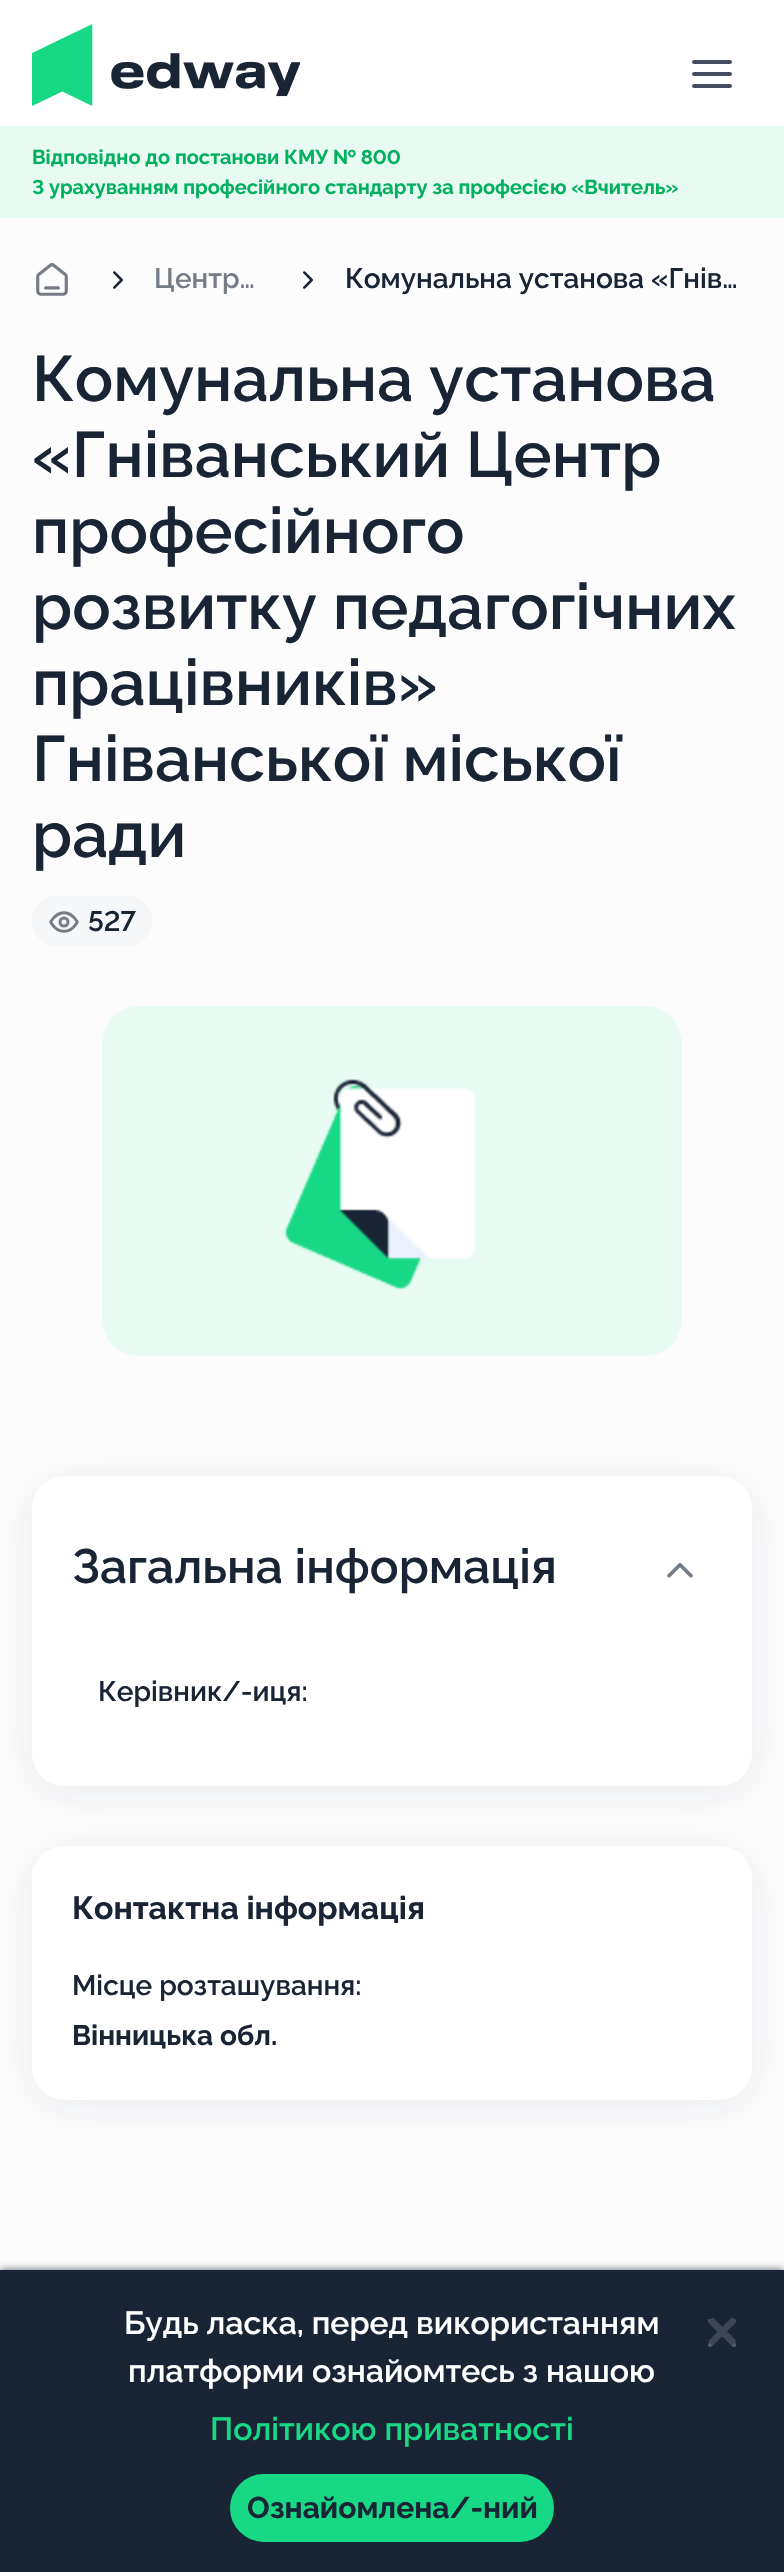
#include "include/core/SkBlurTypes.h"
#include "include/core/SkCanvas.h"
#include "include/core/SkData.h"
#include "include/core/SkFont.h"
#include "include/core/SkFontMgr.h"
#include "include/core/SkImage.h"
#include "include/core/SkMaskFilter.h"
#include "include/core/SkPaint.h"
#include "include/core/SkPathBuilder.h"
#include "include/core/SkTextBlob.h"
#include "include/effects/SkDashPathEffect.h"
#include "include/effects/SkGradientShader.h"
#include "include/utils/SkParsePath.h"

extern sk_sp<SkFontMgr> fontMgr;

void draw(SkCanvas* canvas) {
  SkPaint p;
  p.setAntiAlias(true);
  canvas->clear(SkColorSetRGB(252, 252, 253));
  p.setColor(SK_ColorWHITE);
  canvas->drawRect(SkRect::MakeLTRB(0, 0, 784, 126), p);
  canvas->drawImageRect(SkImages::DeferredFromEncodedData(SkData::MakeFromFileName("images/1.png")), SkRect::MakeLTRB(32, 24, 300, 106), SkSamplingOptions());
  canvas->drawImageRect(SkImages::DeferredFromEncodedData(SkData::MakeFromFileName("images/2.png")), SkRect::MakeLTRB(692, 60, 732, 88), SkSamplingOptions());
  p.setColor(SkColorSetRGB(232, 251, 243));
  canvas->drawRect(SkRect::MakeLTRB(0, 126, 784, 218), p);
  canvas->drawImageRect(SkImages::DeferredFromEncodedData(SkData::MakeFromFileName("images/3.png")), SkRect::MakeLTRB(36, 263, 68, 296), SkSamplingOptions());
  canvas->drawImageRect(SkImages::DeferredFromEncodedData(SkData::MakeFromFileName("images/4.png")), SkRect::MakeLTRB(113, 271, 123, 289), SkSamplingOptions());
  canvas->drawImageRect(SkImages::DeferredFromEncodedData(SkData::MakeFromFileName("images/4.png")), SkRect::MakeLTRB(303, 271, 313, 289), SkSamplingOptions());
  p.setColor(SkColorSetRGB(246, 247, 248));
  canvas->drawRoundRect(SkRect::MakeLTRB(32, 896, 152, 946), 25, 25, p);
  canvas->drawImageRect(SkImages::DeferredFromEncodedData(SkData::MakeFromFileName("images/5.png")), SkRect::MakeLTRB(49, 911, 79, 933), SkSamplingOptions());
  canvas->drawImageRect(SkImages::DeferredFromEncodedData(SkData::MakeFromFileName("images/6.png")), SkRect::MakeLTRB(102, 1006, 682, 1356), SkSamplingOptions());
  p.setColor(SkColorSetARGB(20, 25, 36, 53));
  p.setMaskFilter(SkMaskFilter::MakeBlur(kNormal_SkBlurStyle, 22.5f));
  canvas->drawRoundRect(SkRect::MakeLTRB(32, 1482, 752, 1792), 32, 32, p);
  p.setMaskFilter(nullptr);
  p.setColor(SK_ColorWHITE);
  canvas->drawRoundRect(SkRect::MakeLTRB(32, 1476, 752, 1786), 32, 32, p);
  canvas->drawImageRect(SkImages::DeferredFromEncodedData(SkData::MakeFromFileName("images/7.png")), SkRect::MakeLTRB(667, 1562, 693, 1578), SkSamplingOptions());
  p.setColor(SkColorSetARGB(20, 25, 36, 53));
  p.setMaskFilter(SkMaskFilter::MakeBlur(kNormal_SkBlurStyle, 22.5f));
  canvas->drawRoundRect(SkRect::MakeLTRB(32, 1852, 752, 2106), 32, 32, p);
  p.setMaskFilter(nullptr);
  p.setColor(SK_ColorWHITE);
  canvas->drawRoundRect(SkRect::MakeLTRB(32, 1846, 752, 2100), 32, 32, p);
  p.setColor(SkColorSetARGB(191, 25, 36, 53));
  p.setMaskFilter(SkMaskFilter::MakeBlur(kNormal_SkBlurStyle, 4));
  canvas->drawRect(SkRect::MakeLTRB(0, 2270, 784, 2572), p);
  p.setMaskFilter(nullptr);
  p.setColor(SkColorSetRGB(25, 36, 53));
  canvas->drawRect(SkRect::MakeLTRB(0, 2270, 784, 2572), p);
  p.setColor(SkColorSetRGB(23, 216, 133));
  canvas->drawRoundRect(SkRect::MakeLTRB(231, 2475, 553, 2541), 33, 33, p);
  p.setStyle(SkPaint::kStroke_Style);
  p.setStrokeWidth(2);
  canvas->drawRoundRect(SkRect::MakeLTRB(231, 2475, 553, 2541), 33, 33, p);
  p.setStrokeWidth(4);
  p.setStrokeCap(SkPaint::kRound_Cap);
  p.setStrokeJoin(SkPaint::kRound_Join);
  p.setColor(SkColorSetRGB(85, 93, 106));
  canvas->drawPath(SkPathBuilder().moveTo(734, 2321).lineTo(710, 2345).moveTo(710, 2321).lineTo(734, 2345).detach(), p);
  SkFont font1(fontMgr->matchFamilyStyle("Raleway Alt", SkFontStyle::Bold()), 20);
  font1.setSubpixel(true);
  p.setStyle(SkPaint::kFill_Style);
  p.setColor(SkColorSetRGB(0, 176, 93));
  canvas->drawString("Відповідно до постанови КМУ № 800", 32, 164, font1, p);
  SkFont font2(fontMgr->matchFamilyStyle("Raleway", SkFontStyle::Bold()), 20);
  font2.setSubpixel(true);
  canvas->drawString("З урахуванням професійного стандарту за професією «Вчитель»", 32, 194, font2, p);
  SkFont font3(fontMgr->matchFamilyStyle("Raleway", SkFontStyle(600, SkFontStyle::kNormal_Width, SkFontStyle::kUpright_Slant)), 28);
  font3.setSubpixel(true);
  p.setColor(SkColorSetRGB(117, 124, 134));
  canvas->drawString("Центр…", 154, 288, font3, p);
  p.setColor(SkColorSetRGB(25, 36, 53));
  canvas->drawString("Комунальна установа «Гнів…", 345, 288, font3, p);
  SkFont font4(fontMgr->matchFamilyStyle("Raleway", SkFontStyle(600, SkFontStyle::kNormal_Width, SkFontStyle::kUpright_Slant)), 64);
  font4.setSubpixel(true);
  canvas->drawString("Комунальна установа", 32, 401, font4, p);
  canvas->drawString("«Гніванський Центр", 32, 477, font4, p);
  canvas->drawString("професійного", 32, 553, font4, p);
  canvas->drawString("розвитку педагогічних", 32, 629, font4, p);
  canvas->drawString("працівників»", 32, 705, font4, p);
  canvas->drawString("Гніванської міської", 32, 781, font4, p);
  canvas->drawString("ради", 32, 857, font4, p);
  SkFont font5(fontMgr->matchFamilyStyle("Raleway Alt", SkFontStyle(600, SkFontStyle::kNormal_Width, SkFontStyle::kUpright_Slant)), 28);
  font5.setSubpixel(true);
  canvas->drawString("527", 88, 931, font5, p);
  SkFont font6(fontMgr->matchFamilyStyle("Raleway", SkFontStyle(600, SkFontStyle::kNormal_Width, SkFontStyle::kUpright_Slant)), 48);
  font6.setSubpixel(true);
  canvas->drawString("Загальна інформація", 72, 1583, font6, p);
  canvas->drawString("Керівник/-иця:", 98, 1701, font3, p);
  SkFont font7(fontMgr->matchFamilyStyle("Raleway", SkFontStyle::Bold()), 32);
  font7.setSubpixel(true);
  canvas->drawString("Контактна інформація", 72, 1919, font7, p);
  canvas->drawString("Місце розташування:", 72, 1995, font3, p);
  SkFont font8(fontMgr->matchFamilyStyle("Raleway", SkFontStyle::Bold()), 28);
  font8.setSubpixel(true);
  canvas->drawString("Вінницька обл.", 72, 2045, font8, p);
  SkFont font9(fontMgr->matchFamilyStyle("Raleway", SkFontStyle(600, SkFontStyle::kNormal_Width, SkFontStyle::kUpright_Slant)), 32);
  font9.setSubpixel(true);
  p.setColor(SK_ColorWHITE);
  canvas->drawString("Будь ласка, перед використанням", 124, 2334, font9, p);
  canvas->drawString("платформи ознайомтесь з нашою", 128, 2382, font9, p);
  p.setColor(SkColorSetRGB(23, 216, 133));
  canvas->drawString("Політикою приватності", 210, 2440, font9, p);
  SkFont font10(fontMgr->matchFamilyStyle("Raleway", SkFontStyle::Bold()), 30);
  font10.setSubpixel(true);
  p.setColor(SkColorSetRGB(25, 36, 53));
  canvas->drawString("Ознайомлена/-ний", 247, 2518, font10, p);
  SkFont font11(fontMgr->matchFamilyStyle("Liberation Sans", SkFontStyle::Bold()), 56);
  font11.setSubpixel(true);
  p.setColor(SkColorSetRGB(61, 70, 84));
  canvas->drawString("×", 706, 2350, font11, p);
}
